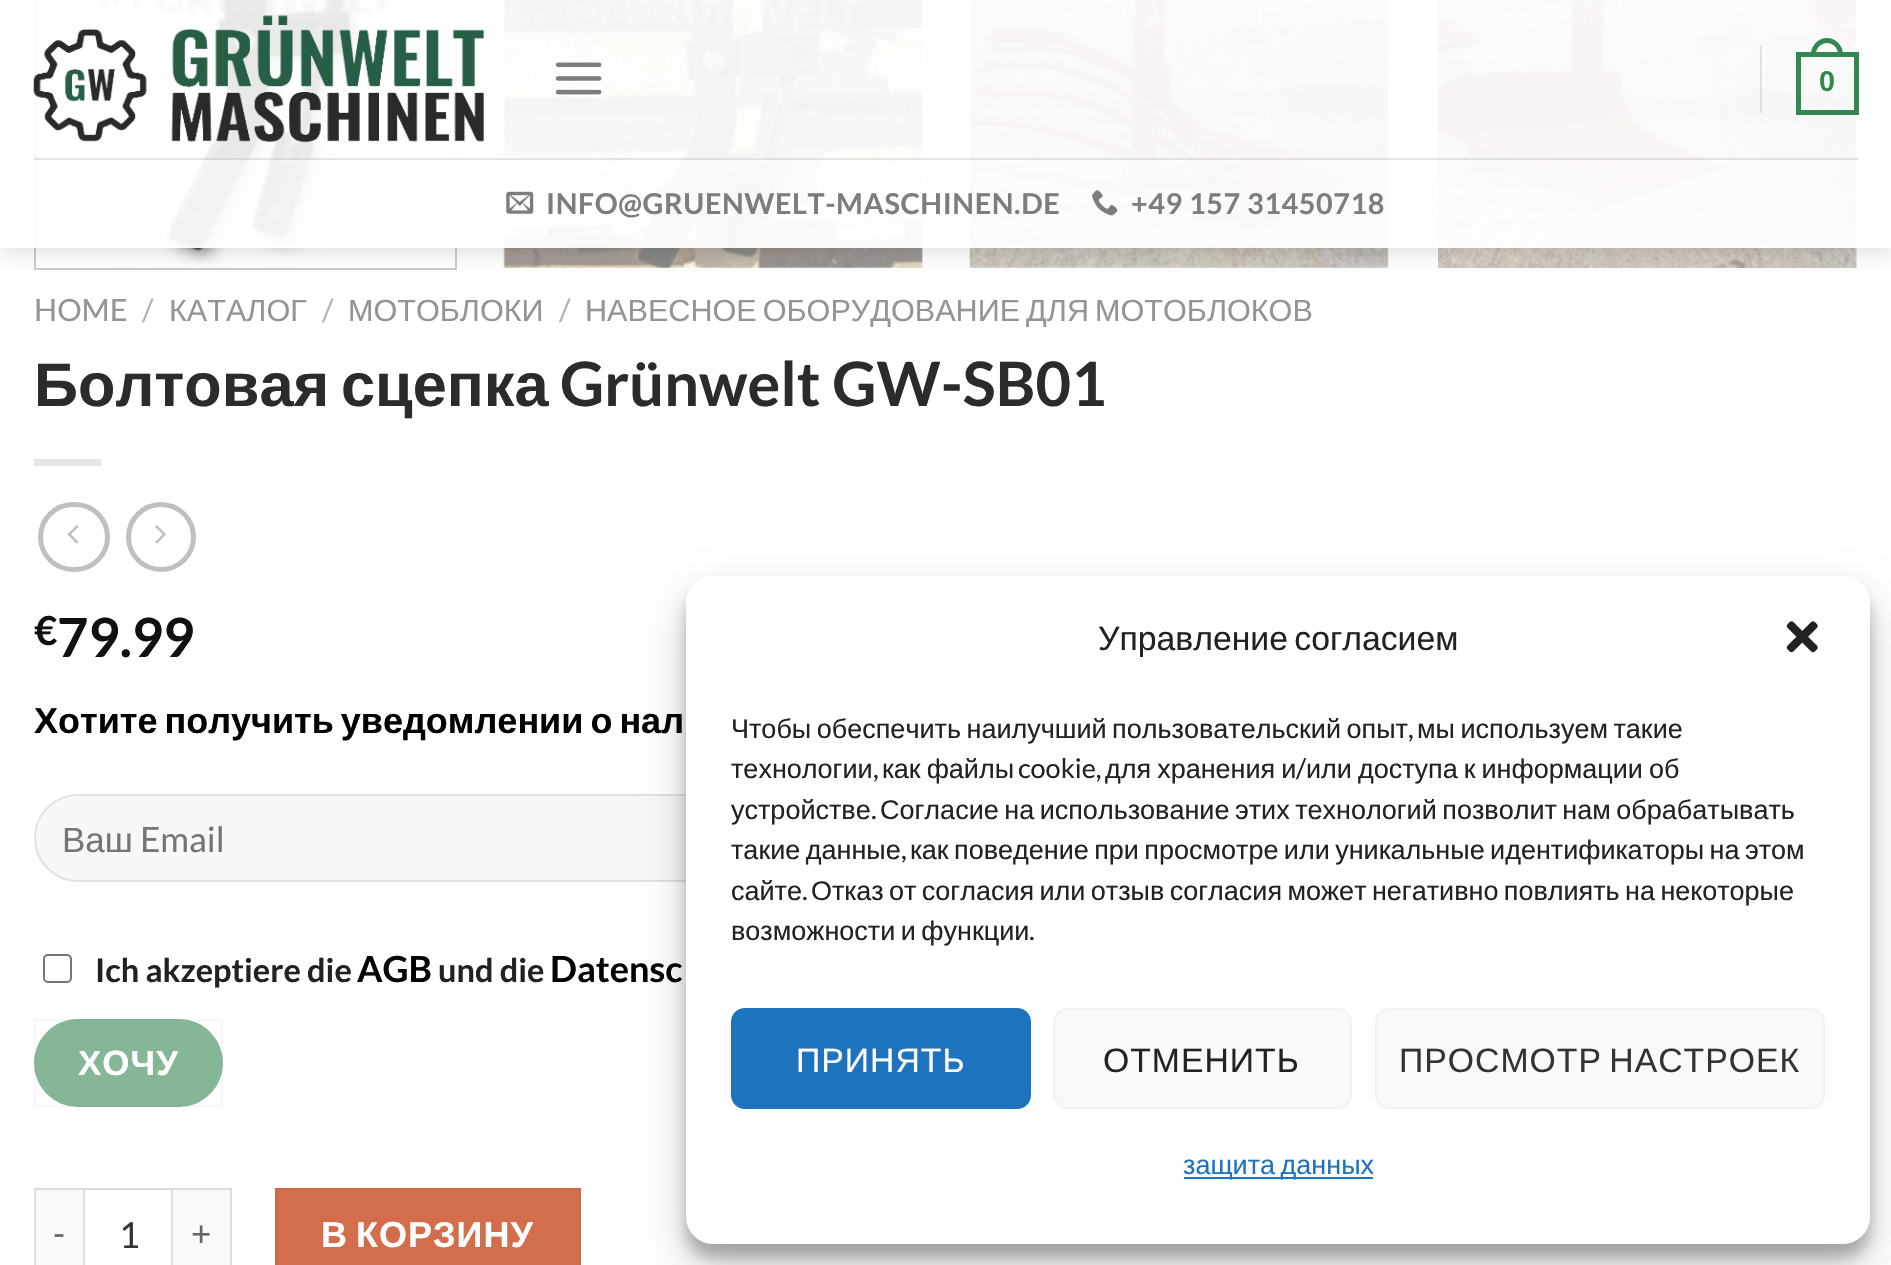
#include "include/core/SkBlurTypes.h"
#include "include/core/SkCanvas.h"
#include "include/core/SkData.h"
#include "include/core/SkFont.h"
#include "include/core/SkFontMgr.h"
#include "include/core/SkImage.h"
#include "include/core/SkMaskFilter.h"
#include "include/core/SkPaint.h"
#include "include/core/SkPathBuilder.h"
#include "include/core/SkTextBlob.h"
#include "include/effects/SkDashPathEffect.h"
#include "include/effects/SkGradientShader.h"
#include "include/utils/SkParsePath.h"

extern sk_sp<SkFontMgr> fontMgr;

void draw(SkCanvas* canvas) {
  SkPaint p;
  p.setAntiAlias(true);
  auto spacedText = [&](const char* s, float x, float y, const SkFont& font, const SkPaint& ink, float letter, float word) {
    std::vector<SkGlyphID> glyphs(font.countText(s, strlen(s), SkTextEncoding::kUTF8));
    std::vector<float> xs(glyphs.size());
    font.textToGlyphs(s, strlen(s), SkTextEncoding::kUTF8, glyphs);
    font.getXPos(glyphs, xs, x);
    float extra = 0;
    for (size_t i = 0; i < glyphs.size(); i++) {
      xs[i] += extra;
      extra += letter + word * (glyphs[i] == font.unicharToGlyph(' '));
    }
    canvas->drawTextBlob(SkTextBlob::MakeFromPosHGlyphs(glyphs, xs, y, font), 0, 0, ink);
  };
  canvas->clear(SK_ColorWHITE);
  p.setStyle(SkPaint::kStroke_Style);
  p.setStrokeWidth(2);
  p.setColor(SkColorSetRGB(204, 204, 204));
  canvas->drawRect(SkRect::MakeLTRB(35, -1, 456, 269), p);
  canvas->drawImageRect(SkImages::DeferredFromEncodedData(SkData::MakeFromFileName("images/5.png")), SkRect::MakeLTRB(90, 0, 389, 265), SkSamplingOptions());
  canvas->drawImageRect(SkImages::DeferredFromEncodedData(SkData::MakeFromFileName("images/6.png")), SkRect::MakeLTRB(503, 0, 923, 268), SkSamplingOptions());
  canvas->drawImageRect(SkImages::DeferredFromEncodedData(SkData::MakeFromFileName("images/7.png")), SkRect::MakeLTRB(969, 0, 1389, 268), SkSamplingOptions());
  canvas->drawImageRect(SkImages::DeferredFromEncodedData(SkData::MakeFromFileName("images/8.png")), SkRect::MakeLTRB(1438, 0, 1857, 268), SkSamplingOptions());
  canvas->save();
  canvas->clipPath(SkPathBuilder(SkPathFillType::kEvenOdd).moveTo(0, 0).lineTo(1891, 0).lineTo(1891, 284).lineTo(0, 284).close().moveTo(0, 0).lineTo(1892, 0).lineTo(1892, 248).lineTo(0, 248).close().detach(), true);
  p.setStyle(SkPaint::kFill_Style);
  p.setColor(SkColorSetARGB(38, 0, 0, 0));
  p.setMaskFilter(SkMaskFilter::MakeBlur(kNormal_SkBlurStyle, 11));
  canvas->drawRect(SkRect::MakeLTRB(2, 2, 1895, 250), p);
  p.setMaskFilter(nullptr);
  canvas->restore();
  p.setColor(SkColorSetARGB(230, 255, 255, 255));
  canvas->drawRect(SkRect::MakeLTRB(0, 0, 1891, 248), p);
  canvas->drawImageRect(SkImages::DeferredFromEncodedData(SkData::MakeFromFileName("images/1.png")), SkRect::MakeLTRB(33, 15, 484, 143), SkSamplingOptions());
  canvas->drawImageRect(SkImages::DeferredFromEncodedData(SkData::MakeFromFileName("images/2.png")), SkRect::MakeLTRB(555, 62, 602, 95), SkSamplingOptions());
  p.setColor(SkColorSetARGB(26, 0, 0, 0));
  canvas->drawRect(SkRect::MakeLTRB(1760, 45, 1762, 113), p);
  p.setStyle(SkPaint::kStroke_Style);
  p.setStrokeWidth(5);
  p.setColor(SkColorSetRGB(51, 135, 80));
  canvas->drawRect(SkRect::MakeLTRB(1798.5f, 54.5f, 1856.5f, 112.5f), p);
  p.setStyle(SkPaint::kFill_Style);
  canvas->drawPath(SkPathBuilder(SkPathFillType::kEvenOdd).moveTo(1827, 38).cubicTo(1835.5f, 38, 1843, 45.5f, 1843, 54).lineTo(1843, 56).lineTo(1811, 56).lineTo(1811, 54).cubicTo(1811, 45.5f, 1818.5f, 38, 1827, 38).close().moveTo(1827, 43).cubicTo(1833, 43, 1838, 48, 1838, 54).lineTo(1838, 56).lineTo(1816, 56).lineTo(1816, 54).cubicTo(1816, 48, 1821, 43, 1827, 43).close().detach(), p);
  p.setColor(SkColorSetARGB(107, 255, 255, 255));
  canvas->drawRect(SkRect::MakeLTRB(168, 158, 1856, 248), p);
  p.setColor(SkColorSetARGB(26, 2, 2, 2));
  canvas->drawRect(SkRect::MakeLTRB(34, 158, 1859, 160), p);
  canvas->drawImageRect(SkImages::DeferredFromEncodedData(SkData::MakeFromFileName("images/3.png")), SkRect::MakeLTRB(506, 191, 534, 214), SkSamplingOptions());
  canvas->drawImageRect(SkImages::DeferredFromEncodedData(SkData::MakeFromFileName("images/4.png")), SkRect::MakeLTRB(1092, 190, 1118, 216), SkSamplingOptions());
  p.setColor(SkColorSetRGB(230, 230, 230));
  canvas->drawRect(SkRect::MakeLTRB(34, 459, 101, 466), p);
  p.setStyle(SkPaint::kStroke_Style);
  p.setColor(SkColorSetRGB(192, 192, 192));
  canvas->drawRoundRect(SkRect::MakeLTRB(40.5f, 504.5f, 107.5f, 569.5f), 32.5f, 32.5f, p);
  canvas->drawImageRect(SkImages::DeferredFromEncodedData(SkData::MakeFromFileName("images/9.png")), SkRect::MakeLTRB(67, 525, 79, 544), SkSamplingOptions());
  canvas->drawCircle(161, 537, 32.5f, p);
  canvas->drawImageRect(SkImages::DeferredFromEncodedData(SkData::MakeFromFileName("images/10.png")), SkRect::MakeLTRB(155, 525, 166, 544), SkSamplingOptions());
  p.setStyle(SkPaint::kFill_Style);
  p.setColor(SkColorSetRGB(248, 248, 248));
  canvas->drawRoundRect(SkRect::MakeLTRB(34, 794, 1859, 882), 44, 44, p);
  p.setStyle(SkPaint::kStroke_Style);
  p.setStrokeWidth(2);
  p.setColor(SkColorSetARGB(23, 0, 0, 0));
  canvas->drawRoundRect(SkRect::MakeLTRB(35, 795, 1858, 881), 43, 43, p);
  p.setColor(SkColorSetRGB(118, 118, 118));
  canvas->drawRoundRect(SkRect::MakeLTRB(44, 955, 71, 982), 4, 4, p);
  p.setStyle(SkPaint::kFill_Style);
  p.setColor(SkColorSetRGB(133, 183, 150));
  canvas->drawRoundRect(SkRect::MakeLTRB(34, 1019, 223, 1107), 44, 44, p);
  p.setStyle(SkPaint::kStroke_Style);
  p.setColor(SkColorSetARGB(13, 102, 102, 102));
  canvas->drawRect(SkRect::MakeLTRB(35, 1020, 222, 1106), p);
  p.setStyle(SkPaint::kFill_Style);
  p.setColor(SkColorSetRGB(249, 249, 249));
  canvas->drawRect(SkRect::MakeLTRB(36, 1190, 83, 1265), p);
  p.setColor(SkColorSetRGB(221, 221, 221));
  canvas->drawRect(SkRect::MakeLTRB(34, 1188, 83, 1190), p);
  canvas->drawRect(SkRect::MakeLTRB(34, 1188, 36, 1265), p);
  p.setStyle(SkPaint::kStroke_Style);
  canvas->drawRect(SkRect::MakeLTRB(84, 1189, 172, 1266), p);
  p.setStyle(SkPaint::kFill_Style);
  p.setColor(SkColorSetRGB(249, 249, 249));
  canvas->drawRect(SkRect::MakeLTRB(173, 1190, 230, 1265), p);
  p.setColor(SkColorSetRGB(221, 221, 221));
  canvas->drawRect(SkRect::MakeLTRB(173, 1188, 232, 1190), p);
  canvas->drawRect(SkRect::MakeLTRB(230, 1188, 232, 1265), p);
  p.setColor(SkColorSetRGB(210, 110, 75));
  canvas->drawRect(SkRect::MakeLTRB(276, 1189, 580, 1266), p);
  p.setStyle(SkPaint::kStroke_Style);
  p.setColor(SkColorSetRGB(200, 105, 71));
  canvas->drawRect(SkRect::MakeLTRB(276, 1189, 580, 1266), p);
  p.setStyle(SkPaint::kFill_Style);
  p.setColor(SkColorSetARGB(59, 0, 0, 0));
  p.setMaskFilter(SkMaskFilter::MakeBlur(kNormal_SkBlurStyle, 7));
  canvas->drawRoundRect(SkRect::MakeLTRB(686, 590, 1870, 1258), 27, 27, p);
  p.setMaskFilter(nullptr);
  p.setColor(SkColorSetARGB(48, 0, 0, 0));
  p.setMaskFilter(SkMaskFilter::MakeBlur(kNormal_SkBlurStyle, 22.5f));
  canvas->drawRoundRect(SkRect::MakeLTRB(686, 599, 1870, 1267), 27, 27, p);
  p.setMaskFilter(nullptr);
  p.setColor(SK_ColorWHITE);
  canvas->drawRoundRect(SkRect::MakeLTRB(686, 576, 1870, 1244), 27, 27, p);
  canvas->drawImageRect(SkImages::DeferredFromEncodedData(SkData::MakeFromFileName("images/11.png")), SkRect::MakeLTRB(1786, 621, 1818, 653), SkSamplingOptions());
  p.setColor(SkColorSetRGB(30, 115, 190));
  canvas->drawRoundRect(SkRect::MakeLTRB(732, 1009, 1030, 1108), 13, 13, p);
  p.setStyle(SkPaint::kStroke_Style);
  canvas->drawRoundRect(SkRect::MakeLTRB(732, 1009, 1030, 1108), 13, 13, p);
  p.setStyle(SkPaint::kFill_Style);
  p.setColor(SkColorSetRGB(249, 249, 249));
  canvas->drawRoundRect(SkRect::MakeLTRB(1054, 1009, 1351, 1108), 13, 13, p);
  p.setStyle(SkPaint::kStroke_Style);
  p.setColor(SkColorSetRGB(242, 242, 242));
  canvas->drawRoundRect(SkRect::MakeLTRB(1054, 1009, 1351, 1108), 13, 13, p);
  p.setStyle(SkPaint::kFill_Style);
  p.setColor(SkColorSetRGB(249, 249, 249));
  canvas->drawRoundRect(SkRect::MakeLTRB(1376, 1009, 1824, 1108), 13, 13, p);
  p.setStyle(SkPaint::kStroke_Style);
  p.setColor(SkColorSetRGB(242, 242, 242));
  canvas->drawRoundRect(SkRect::MakeLTRB(1376, 1009, 1824, 1108), 13, 13, p);
  p.setStyle(SkPaint::kFill_Style);
  p.setColor(SkColorSetRGB(30, 115, 190));
  canvas->drawRect(SkRect::MakeLTRB(1184, 1177, 1373, 1179), p);
  SkFont font1(fontMgr->matchFamilyStyle("Liberation Sans", SkFontStyle::Bold()), 28.75f);
  font1.setSubpixel(true);
  p.setColor(SkColorSetRGB(51, 135, 80));
  canvas->drawString("0", 1819, 91, font1, p);
  SkFont font2(fontMgr->matchFamilyStyle("Lato", SkFontStyle::Bold()), 28.75f);
  font2.setSubpixel(true);
  p.setColor(SkColorSetRGB(125, 125, 124));
  spacedText("INFO@GRUENWELT-MASCHINEN.DE", 546, 214, font2, p, 0.6f, 0);
  spacedText("+49 157 31450718", 1131, 214, font2, p, 0.6f, 0);
  SkFont font3(fontMgr->matchFamilyStyle("Lato", SkFontStyle::Normal()), 30.6f);
  font3.setSubpixel(true);
  p.setColor(SkColorSetRGB(148, 148, 148));
  canvas->drawString("HOME", 34, 321, font3, p);
  p.setColor(SkColorSetRGB(178, 178, 178));
  canvas->drawString("/", 142, 321, font3, p);
  SkFont font4(fontMgr->matchFamilyStyle("Liberation Sans", SkFontStyle::Normal()), 30.6f);
  font4.setSubpixel(true);
  p.setColor(SkColorSetRGB(148, 148, 148));
  canvas->drawString("КАТАЛОГ", 169, 321, font4, p);
  p.setColor(SkColorSetRGB(178, 178, 178));
  canvas->drawString("/", 322, 321, font3, p);
  p.setColor(SkColorSetRGB(148, 148, 148));
  canvas->drawString("МОТОБЛОКИ", 348, 321, font4, p);
  p.setColor(SkColorSetRGB(178, 178, 178));
  canvas->drawString("/", 559, 321, font3, p);
  p.setColor(SkColorSetRGB(148, 148, 148));
  spacedText("НАВЕСНОЕ ОБОРУДОВАНИЕ ДЛЯ МОТОБЛОКОВ", 585, 321, font4, p, 0, -2.5f);
  SkFont font5(fontMgr->matchFamilyStyle("Liberation Sans", SkFontStyle::Bold()), 61.25f);
  font5.setSubpixel(true);
  p.setColor(SkColorSetRGB(43, 43, 43));
  canvas->drawString("Болтовая", 34, 406, font5, p);
  canvas->drawString("сцепка", 341, 406, font5, p);
  SkFont font6(fontMgr->matchFamilyStyle("Lato", SkFontStyle::Bold()), 61.25f);
  font6.setSubpixel(true);
  canvas->drawString("Grünwelt GW-SB01", 560, 406, font6, p);
  SkFont font7(fontMgr->matchFamilyStyle("Lato", SkFontStyle::Bold()), 40);
  font7.setSubpixel(true);
  p.setColor(SkColorSetRGB(17, 17, 17));
  canvas->drawString("€", 34, 645, font7, p);
  SkFont font8(fontMgr->matchFamilyStyle("Lato", SkFontStyle::Bold()), 54);
  font8.setSubpixel(true);
  canvas->drawString("79.99", 57, 657, font8, p);
  SkFont font9(fontMgr->matchFamilyStyle("Liberation Sans", SkFontStyle::Bold()), 36);
  font9.setSubpixel(true);
  p.setColor(SkColorSetRGB(2, 2, 2));
  spacedText("Хотите получить уведомлении о нал", 34, 733, font9, p, 0, -3);
  SkFont font10(fontMgr->matchFamilyStyle("Liberation Sans", SkFontStyle::Normal()), 35);
  font10.setSubpixel(true);
  p.setColor(SkColorSetRGB(117, 117, 117));
  canvas->drawString("Ваш", 62, 852, font10, p);
  SkFont font11(fontMgr->matchFamilyStyle("Lato", SkFontStyle::Normal()), 35);
  font11.setSubpixel(true);
  canvas->drawString("Email", 140, 852, font11, p);
  SkFont font12(fontMgr->matchFamilyStyle("Lato", SkFontStyle::Bold()), 32.5f);
  font12.setSubpixel(true);
  p.setColor(SkColorSetRGB(34, 34, 34));
  canvas->drawString("Ich akzeptiere die", 95, 982, font12, p);
  SkFont font13(fontMgr->matchFamilyStyle("Lato", SkFontStyle::Bold()), 36);
  font13.setSubpixel(true);
  p.setColor(SkColorSetRGB(2, 2, 2));
  canvas->drawString("AGB", 357, 982, font13, p);
  p.setColor(SkColorSetRGB(34, 34, 34));
  canvas->drawString("und die", 438, 982, font12, p);
  p.setColor(SkColorSetRGB(2, 2, 2));
  canvas->drawString("Datensc", 550, 982, font13, p);
  SkFont font14(fontMgr->matchFamilyStyle("Liberation Sans", SkFontStyle::Bold()), 35);
  font14.setSubpixel(true);
  p.setColor(SK_ColorWHITE);
  spacedText("ХОЧУ", 78, 1075, font14, p, 1, 0);
  p.setColor(SkColorSetRGB(102, 102, 102));
  spacedText("-", 53, 1246, font11, p, 1, 0);
  SkFont font15(fontMgr->matchFamilyStyle("Lato", SkFontStyle::Normal()), 36);
  font15.setSubpixel(true);
  p.setColor(SkColorSetRGB(51, 51, 51));
  canvas->drawString("1", 119, 1248, font15, p);
  p.setColor(SkColorSetRGB(102, 102, 102));
  spacedText("+", 191, 1246, font11, p, 1, 0);
  p.setColor(SK_ColorWHITE);
  spacedText("В КОРЗИНУ", 321, 1247, font9, p, 1, -3);
  SkFont font16(fontMgr->matchFamilyStyle("Liberation Sans", SkFontStyle::Normal()), 33.75f);
  font16.setSubpixel(true);
  p.setColor(SkColorSetRGB(34, 34, 34));
  spacedText("Управление согласием", 1098, 650, font16, p, 0, -3);
  SkFont font17(fontMgr->matchFamilyStyle("Liberation Sans", SkFontStyle::Normal()), 27);
  font17.setSubpixel(true);
  spacedText("Чтобы обеспечить наилучший пользовательский опыт", 731, 738, font17, p, 0, -2);
  SkFont font18(fontMgr->matchFamilyStyle("Lato", SkFontStyle::Normal()), 27);
  font18.setSubpixel(true);
  canvas->drawString(",", 1408, 738, font18, p);
  spacedText("мы используем такие", 1417, 738, font17, p, 0, -2);
  canvas->drawString("технологии", 731, 778, font17, p);
  canvas->drawString(",", 873, 778, font18, p);
  spacedText("как файлы", 882, 778, font17, p, 0, -1.5f);
  canvas->drawString("cookie,", 1018, 778, font18, p);
  spacedText("для хранения и", 1105, 778, font17, p, 0, -1.5f);
  canvas->drawString("/", 1296, 778, font18, p);
  spacedText("или доступа к информации об", 1306, 778, font17, p, 0, -1.5f);
  canvas->drawString("устройстве", 731, 819, font17, p);
  canvas->drawString(".", 871, 819, font18, p);
  spacedText("Согласие на использование этих технологий позволит нам обрабатывать", 880, 819, font17, p, 0, -2);
  spacedText("такие данные", 731, 859, font17, p, 0, -2.1f);
  canvas->drawString(",", 901, 859, font18, p);
  spacedText("как поведение при просмотре или уникальные идентификаторы на этом", 910, 859, font17, p, 0, -2.1f);
  canvas->drawString("сайте", 731, 900, font17, p);
  canvas->drawString(".", 802, 900, font18, p);
  spacedText("Отказ от согласия или отзыв согласия может негативно повлиять на некоторые", 811, 900, font17, p, 0, -2.1f);
  spacedText("возможности и функции", 731, 940, font17, p, 0, -2);
  canvas->drawString(".", 1029, 940, font18, p);
  p.setColor(SK_ColorWHITE);
  spacedText("ПРИНЯТЬ", 796, 1072, font16, p, 1, 0);
  p.setColor(SkColorSetRGB(34, 34, 34));
  spacedText("ОТМЕНИТЬ", 1103, 1072, font16, p, 1, 0);
  p.setColor(SkColorSetRGB(51, 51, 51));
  spacedText("ПРОСМОТР НАСТРОЕК", 1399, 1072, font16, p, 1, -3);
  p.setColor(SkColorSetRGB(30, 115, 190));
  spacedText("защита данных", 1183, 1174, font17, p, 0, -2);
}
